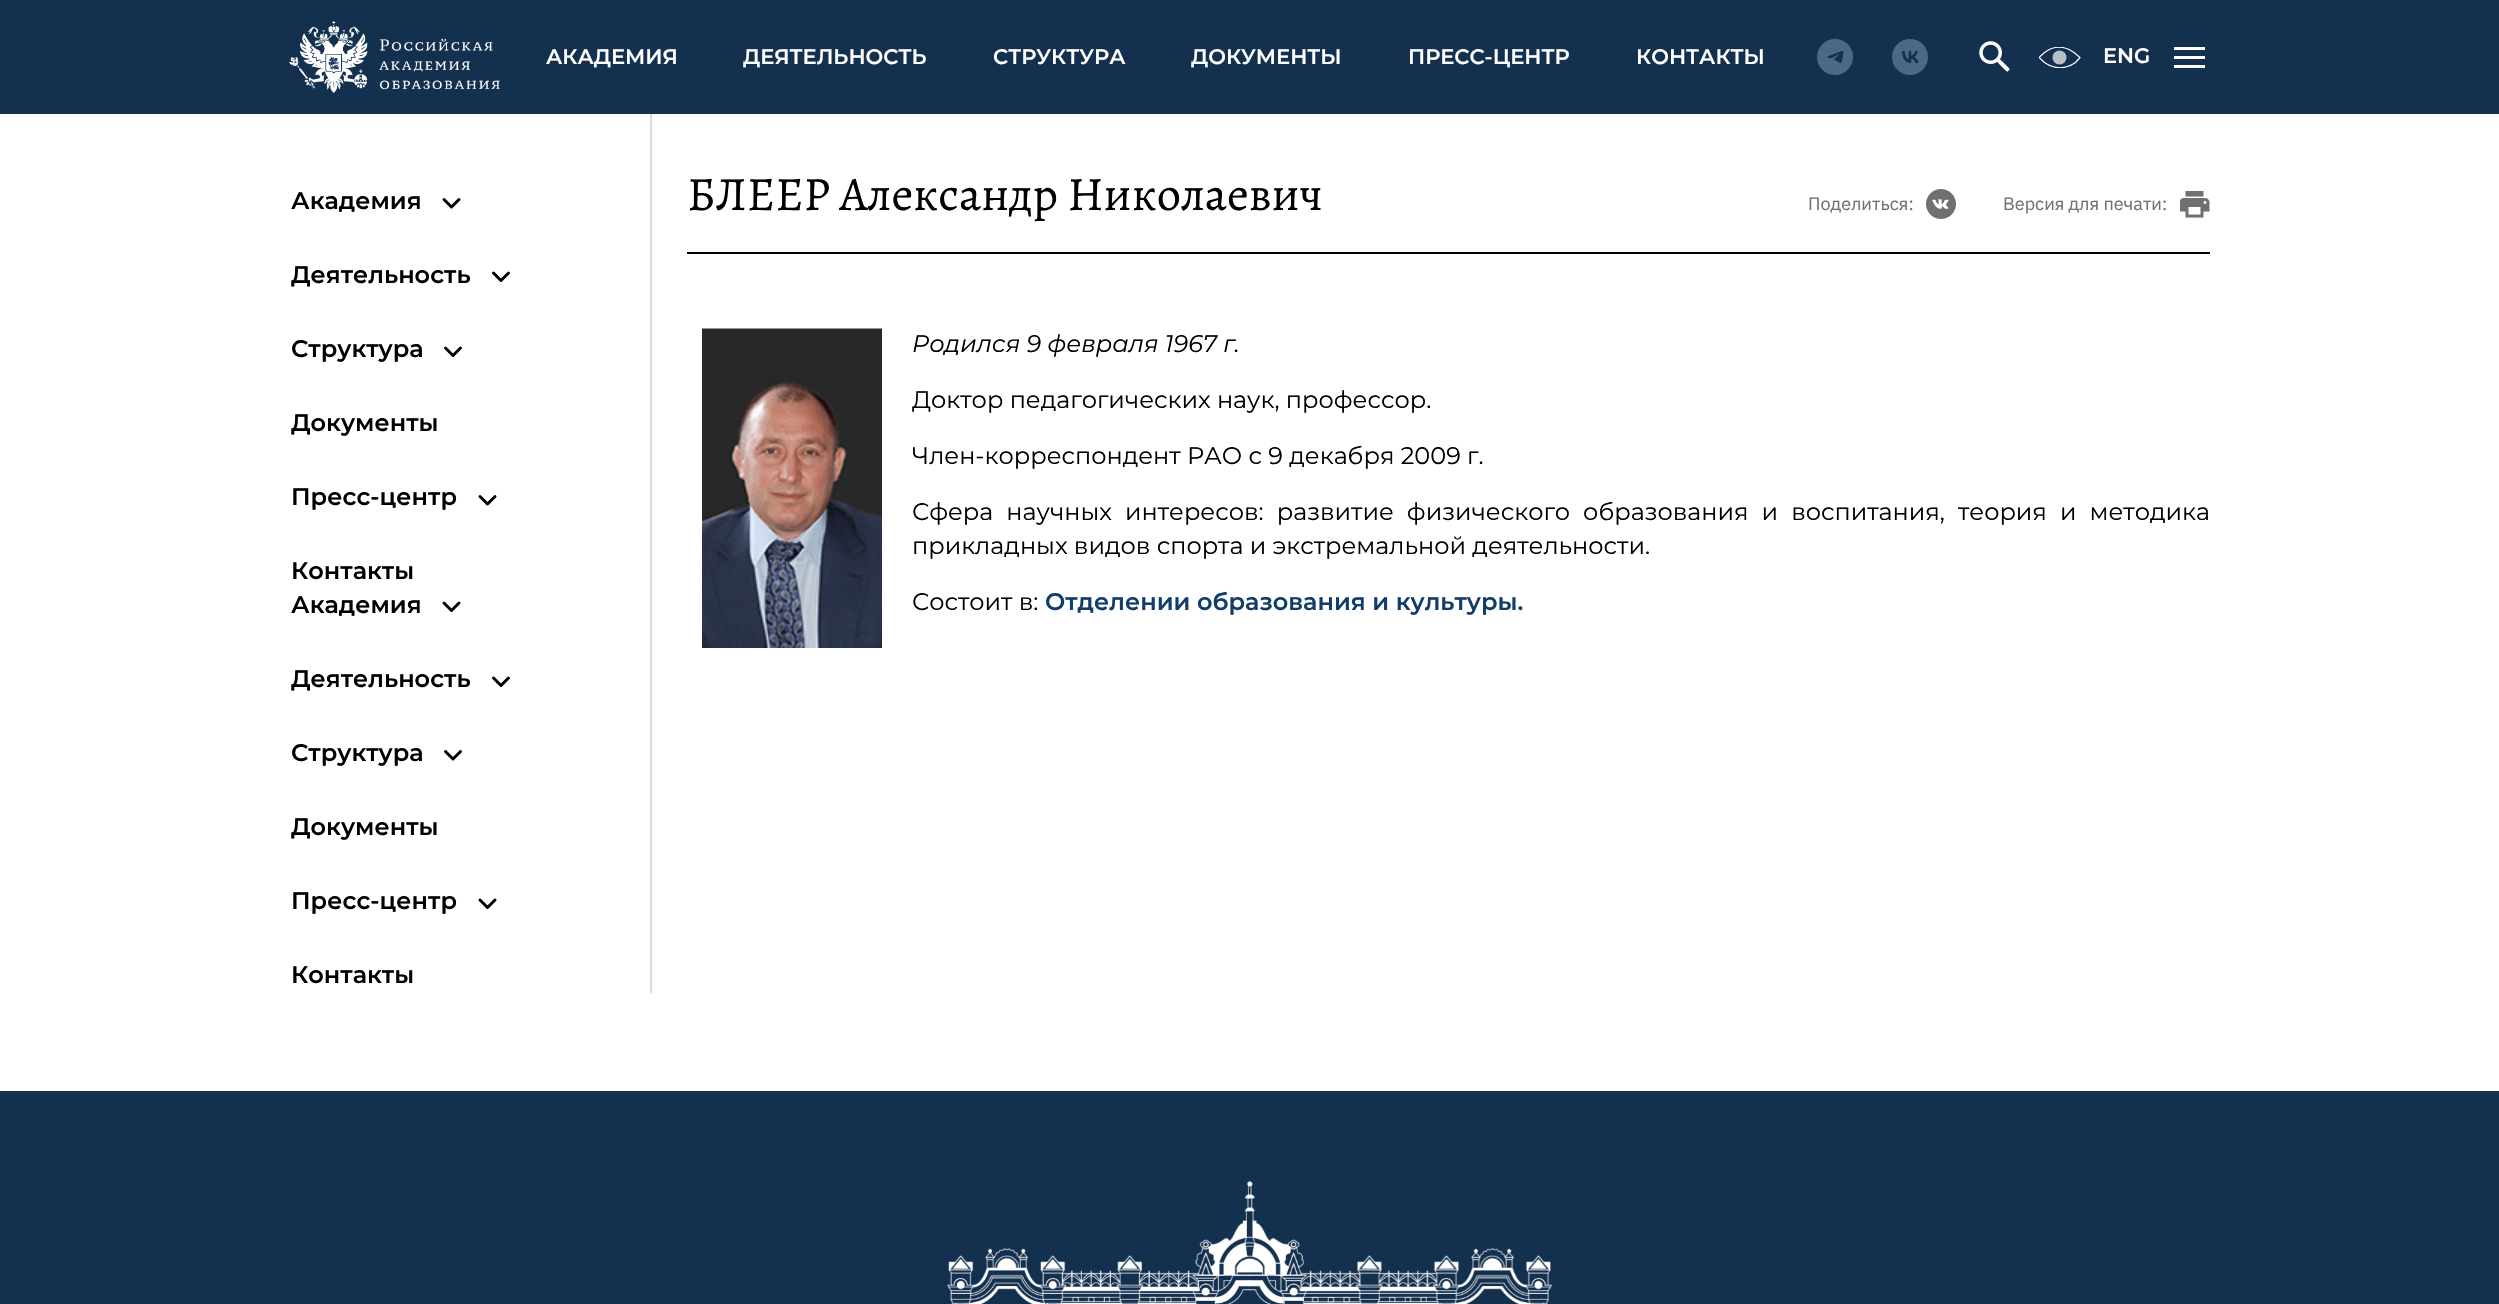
#include "include/core/SkBlurTypes.h"
#include "include/core/SkCanvas.h"
#include "include/core/SkData.h"
#include "include/core/SkFont.h"
#include "include/core/SkFontMgr.h"
#include "include/core/SkImage.h"
#include "include/core/SkMaskFilter.h"
#include "include/core/SkPaint.h"
#include "include/core/SkPathBuilder.h"
#include "include/core/SkTextBlob.h"
#include "include/effects/SkDashPathEffect.h"
#include "include/effects/SkGradientShader.h"
#include "include/utils/SkParsePath.h"

extern sk_sp<SkFontMgr> fontMgr;

void draw(SkCanvas* canvas) {
  SkPaint p;
  p.setAntiAlias(true);
  auto spacedText = [&](const char* s, float x, float y, const SkFont& font, const SkPaint& ink, float letter, float word) {
    std::vector<SkGlyphID> glyphs(font.countText(s, strlen(s), SkTextEncoding::kUTF8));
    std::vector<float> xs(glyphs.size());
    font.textToGlyphs(s, strlen(s), SkTextEncoding::kUTF8, glyphs);
    font.getXPos(glyphs, xs, x);
    float extra = 0;
    for (size_t i = 0; i < glyphs.size(); i++) {
      xs[i] += extra;
      extra += letter + word * (glyphs[i] == font.unicharToGlyph(' '));
    }
    canvas->drawTextBlob(SkTextBlob::MakeFromPosHGlyphs(glyphs, xs, y, font), 0, 0, ink);
  };
  canvas->clear(SK_ColorWHITE);
  p.setColor(SkColorSetRGB(19, 48, 79));
  canvas->drawRect(SkRect::MakeLTRB(0, 0, 2499, 114), p);
  canvas->drawImageRect(SkImages::DeferredFromEncodedData(SkData::MakeFromFileName("images/1.png")), SkRect::MakeLTRB(289, 21, 500, 93), SkSamplingOptions());
  p.setColor(SkColorSetRGB(78, 104, 131));
  canvas->drawCircle(1835, 57, 18, p);
  canvas->drawImageRect(SkImages::DeferredFromEncodedData(SkData::MakeFromFileName("images/2.png")), SkRect::MakeLTRB(1827, 51, 1844, 63), SkSamplingOptions());
  canvas->drawCircle(1910, 57, 18, p);
  canvas->drawImageRect(SkImages::DeferredFromEncodedData(SkData::MakeFromFileName("images/3.png")), SkRect::MakeLTRB(1902, 51, 1919, 63), SkSamplingOptions());
  canvas->drawImageRect(SkImages::DeferredFromEncodedData(SkData::MakeFromFileName("images/4.png")), SkRect::MakeLTRB(1979, 41, 2010, 72), SkSamplingOptions());
  canvas->save();
  canvas->clipRect(SkRect::MakeLTRB(2039, 47, 2081, 68));
  p.setStyle(SkPaint::kStroke_Style);
  p.setStrokeWidth(1.2f);
  p.setColor(SK_ColorWHITE);
  canvas->drawPath(SkPathBuilder().moveTo(2080, 57.5f).lineTo(2075.5f, 62.5f).cubicTo(2066, 69.5f, 2054, 69.5f, 2044.5f, 62.5f).lineTo(2039, 57.5f).lineTo(2044.5f, 52.5f).cubicTo(2053.5f, 45.5f, 2064.5f, 45.5f, 2074, 52.5f).close().moveTo(2080, 57.5f).lineTo(2080, 57.5f).close().detach(), p);
  canvas->restore();
  p.setStyle(SkPaint::kFill_Style);
  p.setColor(SkColorSetRGB(182, 191, 200));
  canvas->drawCircle(2059.5f, 57.5f, 7, p);
  p.setColor(SK_ColorWHITE);
  canvas->drawRect(SkRect::MakeLTRB(2174, 56, 2205, 59), p);
  canvas->drawRect(SkRect::MakeLTRB(2174, 47, 2205, 50), p);
  canvas->drawRect(SkRect::MakeLTRB(2174, 65, 2205, 68), p);
  p.setColor(SkColorSetRGB(218, 218, 218));
  canvas->drawRect(SkRect::MakeLTRB(650, 114, 652, 993), p);
  p.setStyle(SkPaint::kStroke_Style);
  p.setStrokeWidth(3);
  p.setStrokeCap(SkPaint::kRound_Cap);
  p.setStrokeJoin(SkPaint::kRound_Join);
  p.setColor(SK_ColorBLACK);
  canvas->drawPath(SkPathBuilder().moveTo(444, 199.5f).lineTo(451.5f, 207).lineTo(459, 199.5f).detach(), p);
  canvas->drawPath(SkPathBuilder().moveTo(493.5f, 273).lineTo(501, 280.5f).lineTo(508.5f, 273).detach(), p);
  canvas->drawPath(SkPathBuilder().moveTo(445.5f, 348).lineTo(453, 355.5f).lineTo(460.5f, 348).detach(), p);
  canvas->drawPath(SkPathBuilder().moveTo(480, 496.5f).lineTo(487.5f, 504).lineTo(495, 496.5f).detach(), p);
  canvas->drawPath(SkPathBuilder().moveTo(444, 603).lineTo(451.5f, 610.5f).lineTo(459, 603).detach(), p);
  canvas->drawPath(SkPathBuilder().moveTo(493.5f, 678).lineTo(501, 685.5f).lineTo(508.5f, 678).detach(), p);
  canvas->drawPath(SkPathBuilder().moveTo(445.5f, 751.5f).lineTo(453, 759).lineTo(460.5f, 751.5f).detach(), p);
  canvas->drawPath(SkPathBuilder().moveTo(480, 900).lineTo(487.5f, 907.5f).lineTo(495, 900).detach(), p);
  p.setStyle(SkPaint::kFill_Style);
  canvas->drawRect(SkRect::MakeLTRB(687, 252, 2210, 254), p);
  canvas->drawImageRect(SkImages::DeferredFromEncodedData(SkData::MakeFromFileName("images/5.png")), SkRect::MakeLTRB(1926, 189, 1956, 219), SkSamplingOptions());
  canvas->drawImageRect(SkImages::DeferredFromEncodedData(SkData::MakeFromFileName("images/6.png")), SkRect::MakeLTRB(2180, 191, 2210, 218), SkSamplingOptions());
  canvas->drawImageRect(SkImages::DeferredFromEncodedData(SkData::MakeFromFileName("images/7.png")), SkRect::MakeLTRB(702, 328, 882, 648), SkSamplingOptions());
  p.setColor(SkColorSetRGB(19, 48, 79));
  canvas->drawRect(SkRect::MakeLTRB(0, 1091, 2499, 1304), p);
  canvas->drawImageRect(SkImages::DeferredFromEncodedData(SkData::MakeFromFileName("images/8.png")), SkRect::MakeLTRB(946, 1180, 1553, 1304), SkSamplingOptions());
  SkFont font1(fontMgr->matchFamilyStyle("Montserrat", SkFontStyle(600, SkFontStyle::kNormal_Width, SkFontStyle::kUpright_Slant)), 21);
  font1.setSubpixel(true);
  p.setColor(SK_ColorWHITE);
  canvas->drawString("АКАДЕМИЯ", 546, 64, font1, p);
  canvas->drawString("ДЕЯТЕЛЬНОСТЬ", 743, 64, font1, p);
  canvas->drawString("СТРУКТУРА", 993, 64, font1, p);
  canvas->drawString("ДОКУМЕНТЫ", 1191, 64, font1, p);
  canvas->drawString("ПРЕСС-ЦЕНТР", 1408, 64, font1, p);
  canvas->drawString("КОНТАКТЫ", 1636, 64, font1, p);
  canvas->drawString("ENG", 2103, 63, font1, p);
  SkFont font2(fontMgr->matchFamilyStyle("Montserrat", SkFontStyle(600, SkFontStyle::kNormal_Width, SkFontStyle::kUpright_Slant)), 24);
  font2.setSubpixel(true);
  p.setColor(SK_ColorBLACK);
  canvas->drawString("Академия", 291, 209, font2, p);
  canvas->drawString("Деятельность", 291, 283, font2, p);
  canvas->drawString("Структура", 291, 357, font2, p);
  canvas->drawString("Документы", 291, 431, font2, p);
  canvas->drawString("Пресс-центр", 291, 505, font2, p);
  canvas->drawString("Контакты", 291, 579, font2, p);
  canvas->drawString("Академия", 291, 613, font2, p);
  canvas->drawString("Деятельность", 291, 687, font2, p);
  canvas->drawString("Структура", 291, 761, font2, p);
  canvas->drawString("Документы", 291, 835, font2, p);
  canvas->drawString("Пресс-центр", 291, 909, font2, p);
  canvas->drawString("Контакты", 291, 983, font2, p);
  SkFont font3(fontMgr->matchFamilyStyle("Alegreya", SkFontStyle::Normal()), 48);
  font3.setSubpixel(true);
  canvas->drawString("БЛЕЕР Александр Николаевич", 687, 210, font3, p);
  SkFont font4(fontMgr->matchFamilyStyle("IBM Plex Sans", SkFontStyle::Normal()), 18);
  font4.setSubpixel(true);
  p.setColor(SkColorSetRGB(112, 112, 112));
  canvas->drawString("Поделиться:", 1808, 210, font4, p);
  canvas->drawString("Версия для печати:", 2003, 210, font4, p);
  SkFont font5(fontMgr->matchFamilyStyle("Montserrat", SkFontStyle::Italic()), 24);
  font5.setSubpixel(true);
  p.setColor(SK_ColorBLACK);
  canvas->drawString("Родился 9 февраля 1967 г.", 912, 352, font5, p);
  SkFont font6(fontMgr->matchFamilyStyle("Montserrat", SkFontStyle::Normal()), 24);
  font6.setSubpixel(true);
  canvas->drawString("Доктор педагогических наук, профессор.", 912, 408, font6, p);
  canvas->drawString("Член-корреспондент РАО с 9 декабря 2009 г.", 912, 464, font6, p);
  spacedText("Сфера научных интересов: развитие физического образования и воспитания, теория и методика", 912, 520, font6, p, 0, 6.75f);
  canvas->drawString("прикладных видов спорта и экстремальной деятельности.", 912, 554, font6, p);
  canvas->drawString("Состоит в:", 912, 610, font6, p);
  p.setColor(SkColorSetRGB(18, 60, 106));
  canvas->drawString("Отделении образования и культуры.", 1045, 610, font2, p);
}
